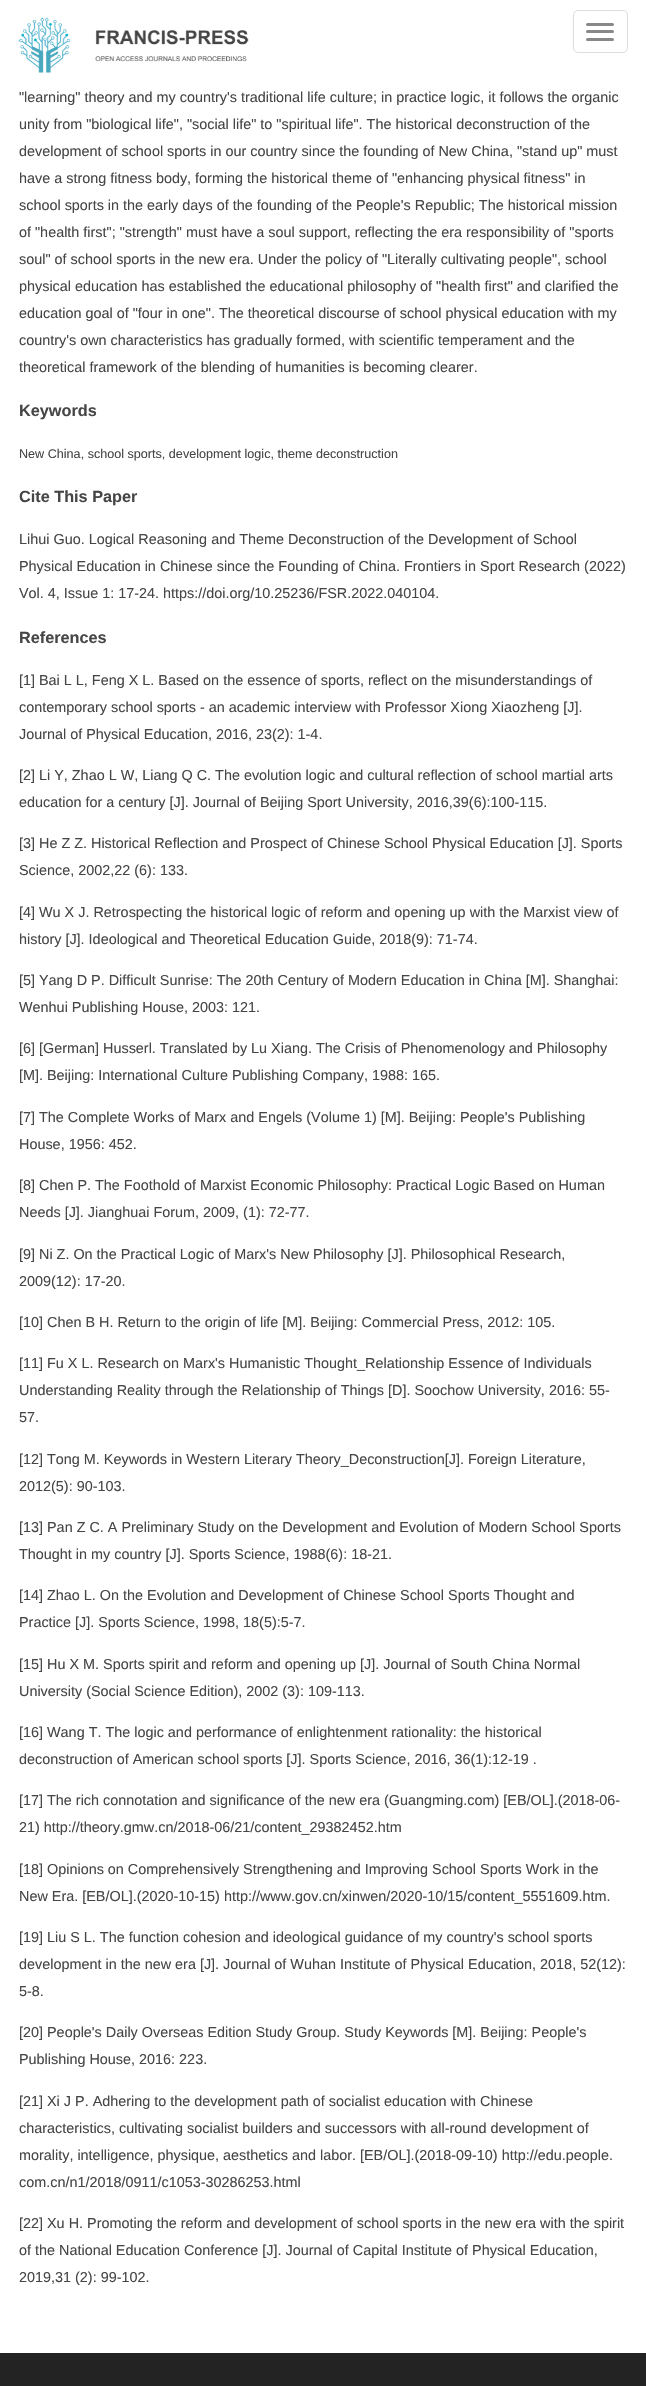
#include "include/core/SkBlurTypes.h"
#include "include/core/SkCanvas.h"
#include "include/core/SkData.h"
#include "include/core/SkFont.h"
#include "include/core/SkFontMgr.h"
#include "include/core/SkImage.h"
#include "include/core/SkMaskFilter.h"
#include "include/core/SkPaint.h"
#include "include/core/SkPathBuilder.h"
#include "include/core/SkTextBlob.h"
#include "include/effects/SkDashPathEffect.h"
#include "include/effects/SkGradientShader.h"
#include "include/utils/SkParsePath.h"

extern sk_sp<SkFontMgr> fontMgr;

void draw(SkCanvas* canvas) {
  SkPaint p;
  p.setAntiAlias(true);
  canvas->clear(SK_ColorWHITE);
  canvas->drawImageRect(SkImages::DeferredFromEncodedData(SkData::MakeFromFileName("images/1.png")), SkRect::MakeLTRB(18, 17, 249, 73), SkSamplingOptions());
  p.setStyle(SkPaint::kStroke_Style);
  p.setStrokeWidth(1);
  p.setColor(SkColorSetRGB(221, 221, 221));
  canvas->drawRoundRect(SkRect::MakeLTRB(573.5f, 10.5f, 627.5f, 52.5f), 4.5f, 4.5f, p);
  p.setStyle(SkPaint::kFill_Style);
  p.setColor(SkColorSetRGB(136, 136, 136));
  canvas->drawRoundRect(SkRect::MakeLTRB(586, 23, 614, 26), 1.5f, 1.5f, p);
  canvas->drawRoundRect(SkRect::MakeLTRB(586, 30, 614, 33), 1.5f, 1.5f, p);
  canvas->drawRoundRect(SkRect::MakeLTRB(586, 38, 614, 41), 1.5f, 1.5f, p);
  p.setColor(SkColorSetRGB(35, 35, 35));
  canvas->drawRect(SkRect::MakeLTRB(0, 2353, 646, 2386), p);
  SkFont font1(fontMgr->matchFamilyStyle("Liberation Sans", SkFontStyle::Normal()), 14.4f);
  font1.setSubpixel(true);
  p.setColor(SkColorSetRGB(70, 70, 70));
  canvas->drawString("\"learning\" theory and my country's traditional life culture; in practice logic, it follows the organic", 19, 102, font1, p);
  canvas->drawString("unity from \"biological life\", \"social life\" to \"spiritual life\". The historical deconstruction of the", 19, 129, font1, p);
  canvas->drawString("development of school sports in our country since the founding of New China, \"stand up\" must", 19, 156, font1, p);
  canvas->drawString("have a strong fitness body, forming the historical theme of \"enhancing physical fitness\" in", 19, 183, font1, p);
  canvas->drawString("school sports in the early days of the founding of the People's Republic; The historical mission", 19, 210, font1, p);
  canvas->drawString("of \"health first\"; \"strength\" must have a soul support, reflecting the era responsibility of \"sports", 19, 237, font1, p);
  canvas->drawString("soul\" of school sports in the new era. Under the policy of \"Literally cultivating people\", school", 19, 264, font1, p);
  canvas->drawString("physical education has established the educational philosophy of \"health first\" and clarified the", 19, 291, font1, p);
  canvas->drawString("education goal of \"four in one\". The theoretical discourse of school physical education with my", 19, 318, font1, p);
  canvas->drawString("country's own characteristics has gradually formed, with scientific temperament and the", 19, 345, font1, p);
  canvas->drawString("theoretical framework of the blending of humanities is becoming clearer.", 19, 372, font1, p);
  SkFont font2(fontMgr->matchFamilyStyle("Liberation Sans", SkFontStyle::Bold()), 16.25f);
  font2.setSubpixel(true);
  canvas->drawString("Keywords", 19, 416, font2, p);
  SkFont font3(fontMgr->matchFamilyStyle("Liberation Sans", SkFontStyle::Normal()), 12.6f);
  font3.setSubpixel(true);
  canvas->drawString("New China, school sports, development logic, theme deconstruction", 19, 458, font3, p);
  canvas->drawString("Cite This Paper", 19, 502, font2, p);
  canvas->drawString("Lihui Guo. Logical Reasoning and Theme Deconstruction of the Development of School", 19, 544, font1, p);
  canvas->drawString("Physical Education in Chinese since the Founding of China. Frontiers in Sport Research (2022)", 19, 571, font1, p);
  canvas->drawString("Vol. 4, Issue 1: 17-24. https://doi.org/10.25236/FSR.2022.040104.", 19, 598, font1, p);
  canvas->drawString("References", 19, 643, font2, p);
  canvas->drawString("[1] Bai L L, Feng X L. Based on the essence of sports, reflect on the misunderstandings of", 19, 685, font1, p);
  canvas->drawString("contemporary school sports - an academic interview with Professor Xiong Xiaozheng [J].", 19, 712, font1, p);
  canvas->drawString("Journal of Physical Education, 2016, 23(2): 1-4.", 19, 739, font1, p);
  canvas->drawString("[2] Li Y, Zhao L W, Liang Q C. The evolution logic and cultural reflection of school martial arts", 19, 780, font1, p);
  canvas->drawString("education for a century [J]. Journal of Beijing Sport University, 2016,39(6):100-115.", 19, 807, font1, p);
  canvas->drawString("[3] He Z Z. Historical Reflection and Prospect of Chinese School Physical Education [J]. Sports", 19, 848, font1, p);
  canvas->drawString("Science, 2002,22 (6): 133.", 19, 875, font1, p);
  canvas->drawString("[4] Wu X J. Retrospecting the historical logic of reform and opening up with the Marxist view of", 19, 917, font1, p);
  canvas->drawString("history [J]. Ideological and Theoretical Education Guide, 2018(9): 71-74.", 19, 944, font1, p);
  canvas->drawString("[5] Yang D P. Difficult Sunrise: The 20th Century of Modern Education in China [M]. Shanghai:", 19, 985, font1, p);
  canvas->drawString("Wenhui Publishing House, 2003: 121.", 19, 1012, font1, p);
  canvas->drawString("[6] [German] Husserl. Translated by Lu Xiang. The Crisis of Phenomenology and Philosophy", 19, 1053, font1, p);
  canvas->drawString("[M]. Beijing: International Culture Publishing Company, 1988: 165.", 19, 1080, font1, p);
  canvas->drawString("[7] The Complete Works of Marx and Engels (Volume 1) [M]. Beijing: People's Publishing", 19, 1122, font1, p);
  canvas->drawString("House, 1956: 452.", 19, 1149, font1, p);
  canvas->drawString("[8] Chen P. The Foothold of Marxist Economic Philosophy: Practical Logic Based on Human", 19, 1190, font1, p);
  canvas->drawString("Needs [J]. Jianghuai Forum, 2009, (1): 72-77.", 19, 1217, font1, p);
  canvas->drawString("[9] Ni Z. On the Practical Logic of Marx's New Philosophy [J]. Philosophical Research,", 19, 1259, font1, p);
  canvas->drawString("2009(12): 17-20.", 19, 1286, font1, p);
  canvas->drawString("[10] Chen B H. Return to the origin of life [M]. Beijing: Commercial Press, 2012: 105.", 19, 1327, font1, p);
  canvas->drawString("[11] Fu X L. Research on Marx's Humanistic Thought_Relationship Essence of Individuals", 19, 1368, font1, p);
  canvas->drawString("Understanding Reality through the Relationship of Things [D]. Soochow University, 2016: 55-", 19, 1395, font1, p);
  canvas->drawString("57.", 19, 1422, font1, p);
  canvas->drawString("[12] Tong M. Keywords in Western Literary Theory_Deconstruction[J]. Foreign Literature,", 19, 1464, font1, p);
  canvas->drawString("2012(5): 90-103.", 19, 1491, font1, p);
  canvas->drawString("[13] Pan Z C. A Preliminary Study on the Development and Evolution of Modern School Sports", 19, 1532, font1, p);
  canvas->drawString("Thought in my country [J]. Sports Science, 1988(6): 18-21.", 19, 1559, font1, p);
  canvas->drawString("[14] Zhao L. On the Evolution and Development of Chinese School Sports Thought and", 19, 1600, font1, p);
  canvas->drawString("Practice [J]. Sports Science, 1998, 18(5):5-7.", 19, 1627, font1, p);
  canvas->drawString("[15] Hu X M. Sports spirit and reform and opening up [J]. Journal of South China Normal", 19, 1669, font1, p);
  canvas->drawString("University (Social Science Edition), 2002 (3): 109-113.", 19, 1696, font1, p);
  canvas->drawString("[16] Wang T. The logic and performance of enlightenment rationality: the historical", 19, 1737, font1, p);
  canvas->drawString("deconstruction of American school sports [J]. Sports Science, 2016, 36(1):12-19 .", 19, 1764, font1, p);
  canvas->drawString("[17] The rich connotation and significance of the new era (Guangming.com) [EB/OL].(2018-06-", 19, 1805, font1, p);
  canvas->drawString("21) http://theory.gmw.cn/2018-06/21/content_29382452.htm", 19, 1832, font1, p);
  canvas->drawString("[18] Opinions on Comprehensively Strengthening and Improving School Sports Work in the", 19, 1874, font1, p);
  canvas->drawString("New Era. [EB/OL].(2020-10-15) http://www.gov.cn/xinwen/2020-10/15/content_5551609.htm.", 19, 1901, font1, p);
  canvas->drawString("[19] Liu S L. The function cohesion and ideological guidance of my country's school sports", 19, 1942, font1, p);
  canvas->drawString("development in the new era [J]. Journal of Wuhan Institute of Physical Education, 2018, 52(12):", 19, 1969, font1, p);
  canvas->drawString("5-8.", 19, 1996, font1, p);
  canvas->drawString("[20] People's Daily Overseas Edition Study Group. Study Keywords [M]. Beijing: People's", 19, 2037, font1, p);
  canvas->drawString("Publishing House, 2016: 223.", 19, 2064, font1, p);
  canvas->drawString("[21] Xi J P. Adhering to the development path of socialist education with Chinese", 19, 2106, font1, p);
  canvas->drawString("characteristics, cultivating socialist builders and successors with all-round development of", 19, 2133, font1, p);
  canvas->drawString("morality, intelligence, physique, aesthetics and labor. [EB/OL].(2018-09-10) http://edu.people.", 19, 2160, font1, p);
  canvas->drawString("com.cn/n1/2018/0911/c1053-30286253.html", 19, 2187, font1, p);
  canvas->drawString("[22] Xu H. Promoting the reform and development of school sports in the new era with the spirit", 19, 2228, font1, p);
  canvas->drawString("of the National Education Conference [J]. Journal of Capital Institute of Physical Education,", 19, 2255, font1, p);
  canvas->drawString("2019,31 (2): 99-102.", 19, 2282, font1, p);
}
